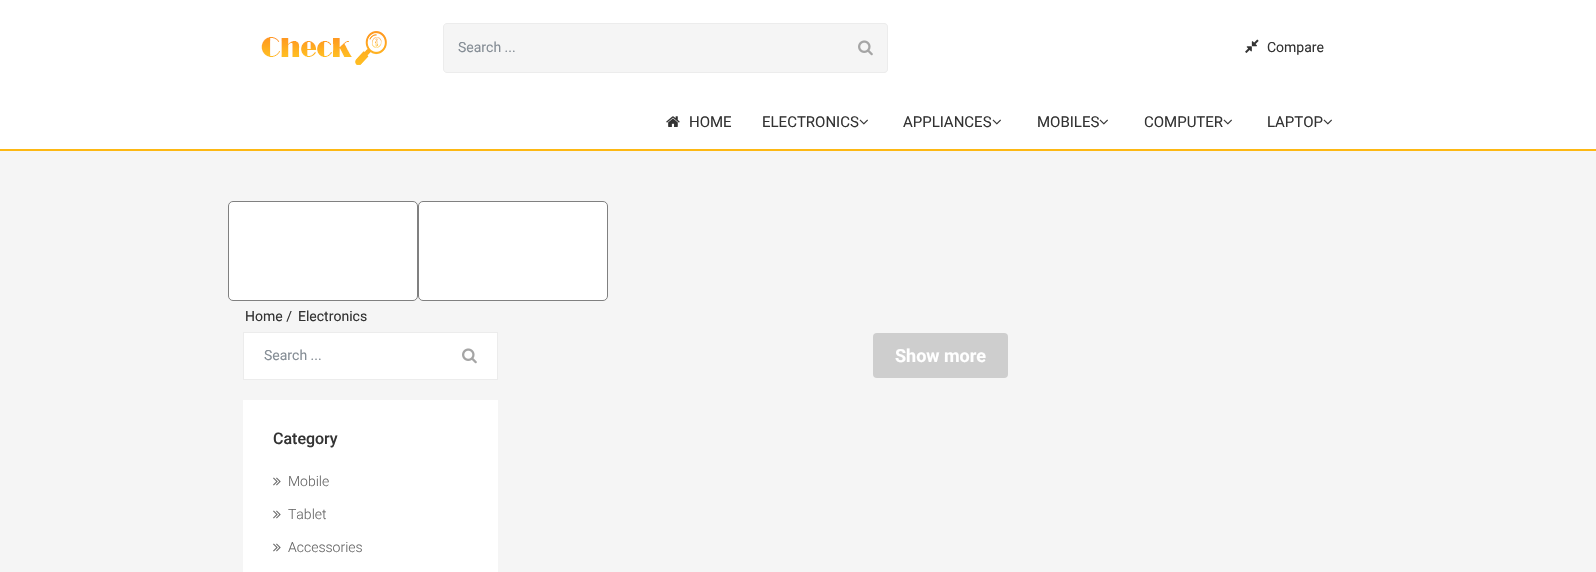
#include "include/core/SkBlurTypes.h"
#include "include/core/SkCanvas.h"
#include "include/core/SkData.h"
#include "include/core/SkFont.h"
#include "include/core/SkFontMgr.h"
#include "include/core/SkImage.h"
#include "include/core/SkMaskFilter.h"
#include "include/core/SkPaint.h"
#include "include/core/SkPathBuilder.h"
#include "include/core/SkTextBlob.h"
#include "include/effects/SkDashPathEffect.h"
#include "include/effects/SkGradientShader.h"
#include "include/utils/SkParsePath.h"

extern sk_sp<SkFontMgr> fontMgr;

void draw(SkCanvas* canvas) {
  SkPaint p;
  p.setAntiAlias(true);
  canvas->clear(SK_ColorWHITE);
  canvas->drawImageRect(SkImages::DeferredFromEncodedData(SkData::MakeFromFileName("images/1.png")), SkRect::MakeLTRB(261, 31, 387, 65), SkSamplingOptions());
  p.setColor(SkColorSetRGB(245, 245, 245));
  canvas->drawPath(SkPathBuilder().moveTo(447, 23.5f).lineTo(844.5f, 23.5f).lineTo(844.5f, 72.5f).lineTo(447, 72.5f).cubicTo(445, 72.5f, 443.5f, 71, 443.5f, 69).lineTo(443.5f, 27).cubicTo(443.5f, 25, 445, 23.5f, 447, 23.5f).close().detach(), p);
  p.setStyle(SkPaint::kStroke_Style);
  p.setStrokeWidth(1);
  p.setColor(SkColorSetRGB(236, 236, 236));
  canvas->drawPath(SkPathBuilder().moveTo(447, 23.5f).lineTo(844.5f, 23.5f).lineTo(844.5f, 72.5f).lineTo(447, 72.5f).cubicTo(445, 72.5f, 443.5f, 71, 443.5f, 69).lineTo(443.5f, 27).cubicTo(443.5f, 25, 445, 23.5f, 447, 23.5f).close().detach(), p);
  p.setStyle(SkPaint::kFill_Style);
  p.setColor(SkColorSetRGB(245, 245, 245));
  canvas->drawPath(SkPathBuilder().moveTo(844, 23).lineTo(884, 23).cubicTo(886, 23, 888, 25, 888, 27).lineTo(888, 69).cubicTo(888, 71, 886, 73, 884, 73).lineTo(844, 73).close().detach(), p);
  p.setColor(SkColorSetRGB(236, 236, 236));
  canvas->drawPath(SkPathBuilder(SkPathFillType::kEvenOdd).moveTo(844, 23).lineTo(884, 23).cubicTo(886, 23, 888, 25, 888, 27).lineTo(888, 69).cubicTo(888, 71, 886, 73, 884, 73).lineTo(844, 73).close().moveTo(844, 24).lineTo(884, 24).cubicTo(886, 24, 887, 25, 887, 27).lineTo(887, 69).cubicTo(887, 71, 886, 72, 884, 72).lineTo(844, 72).close().detach(), p);
  canvas->drawImageRect(SkImages::DeferredFromEncodedData(SkData::MakeFromFileName("images/2.png")), SkRect::MakeLTRB(858, 40, 873, 56), SkSamplingOptions());
  canvas->drawImageRect(SkImages::DeferredFromEncodedData(SkData::MakeFromFileName("images/3.png")), SkRect::MakeLTRB(1245, 39, 1259, 53), SkSamplingOptions());
  p.setColor(SkColorSetRGB(253, 184, 19));
  canvas->drawRect(SkRect::MakeLTRB(0, 149, 1596, 151), p);
  canvas->drawImageRect(SkImages::DeferredFromEncodedData(SkData::MakeFromFileName("images/4.png")), SkRect::MakeLTRB(666, 116, 680, 127), SkSamplingOptions());
  canvas->drawImageRect(SkImages::DeferredFromEncodedData(SkData::MakeFromFileName("images/5.png")), SkRect::MakeLTRB(859, 119, 868, 125), SkSamplingOptions());
  canvas->drawImageRect(SkImages::DeferredFromEncodedData(SkData::MakeFromFileName("images/5.png")), SkRect::MakeLTRB(992, 119, 1001, 125), SkSamplingOptions());
  canvas->drawImageRect(SkImages::DeferredFromEncodedData(SkData::MakeFromFileName("images/5.png")), SkRect::MakeLTRB(1099, 119, 1108, 125), SkSamplingOptions());
  canvas->drawImageRect(SkImages::DeferredFromEncodedData(SkData::MakeFromFileName("images/5.png")), SkRect::MakeLTRB(1223, 119, 1232, 125), SkSamplingOptions());
  canvas->drawImageRect(SkImages::DeferredFromEncodedData(SkData::MakeFromFileName("images/5.png")), SkRect::MakeLTRB(1323, 119, 1332, 125), SkSamplingOptions());
  p.setColor(SkColorSetRGB(245, 245, 245));
  canvas->drawRect(SkRect::MakeLTRB(0, 151, 1596, 572), p);
  p.setColor(SK_ColorWHITE);
  canvas->drawRoundRect(SkRect::MakeLTRB(228.5f, 201.5f, 417.5f, 300.5f), 4.5f, 4.5f, p);
  p.setStyle(SkPaint::kStroke_Style);
  p.setColor(SkColorSetRGB(128, 128, 128));
  canvas->drawRoundRect(SkRect::MakeLTRB(228.5f, 201.5f, 417.5f, 300.5f), 4.5f, 4.5f, p);
  p.setStyle(SkPaint::kFill_Style);
  p.setColor(SK_ColorWHITE);
  canvas->drawRoundRect(SkRect::MakeLTRB(418.5f, 201.5f, 607.5f, 300.5f), 4.5f, 4.5f, p);
  p.setStyle(SkPaint::kStroke_Style);
  p.setColor(SkColorSetRGB(128, 128, 128));
  canvas->drawRoundRect(SkRect::MakeLTRB(418.5f, 201.5f, 607.5f, 300.5f), 4.5f, 4.5f, p);
  p.setStyle(SkPaint::kFill_Style);
  p.setColor(SK_ColorWHITE);
  canvas->drawRect(SkRect::MakeLTRB(243.5f, 332.5f, 497.5f, 379.5f), p);
  p.setStyle(SkPaint::kStroke_Style);
  p.setColor(SkColorSetRGB(236, 236, 236));
  canvas->drawRect(SkRect::MakeLTRB(243.5f, 332.5f, 497.5f, 379.5f), p);
  canvas->drawImageRect(SkImages::DeferredFromEncodedData(SkData::MakeFromFileName("images/6.png")), SkRect::MakeLTRB(462, 348, 477, 364), SkSamplingOptions());
  p.setStyle(SkPaint::kFill_Style);
  p.setColor(SK_ColorWHITE);
  canvas->drawRect(SkRect::MakeLTRB(243, 400, 498, 572), p);
  canvas->drawImageRect(SkImages::DeferredFromEncodedData(SkData::MakeFromFileName("images/7.png")), SkRect::MakeLTRB(273, 477, 281, 486), SkSamplingOptions());
  canvas->drawImageRect(SkImages::DeferredFromEncodedData(SkData::MakeFromFileName("images/7.png")), SkRect::MakeLTRB(273, 510, 281, 519), SkSamplingOptions());
  canvas->drawImageRect(SkImages::DeferredFromEncodedData(SkData::MakeFromFileName("images/7.png")), SkRect::MakeLTRB(273, 543, 281, 552), SkSamplingOptions());
  p.setColor(SkColorSetRGB(206, 206, 206));
  canvas->drawRoundRect(SkRect::MakeLTRB(873, 333, 1008, 378), 4, 4, p);
  SkFont font1(fontMgr->matchFamilyStyle("Roboto", SkFontStyle::Normal()), 14);
  font1.setSubpixel(true);
  p.setColor(SkColorSetRGB(134, 142, 150));
  canvas->drawString("Search ...", 458, 52, font1, p);
  p.setColor(SkColorSetRGB(51, 51, 51));
  canvas->drawString("Compare", 1267, 52, font1, p);
  SkFont font2(fontMgr->matchFamilyStyle("Roboto", SkFontStyle::Normal()), 15);
  font2.setSubpixel(true);
  canvas->drawString("HOME", 689, 127, font2, p);
  canvas->drawString("ELECTRONICS", 762, 127, font2, p);
  canvas->drawString("APPLIANCES", 903, 127, font2, p);
  canvas->drawString("MOBILES", 1037, 127, font2, p);
  canvas->drawString("COMPUTER", 1144, 127, font2, p);
  canvas->drawString("LAPTOP", 1267, 127, font2, p);
  canvas->drawString("Home /", 245, 321, font1, p);
  canvas->drawString("Electronics", 298, 321, font1, p);
  p.setColor(SkColorSetRGB(134, 142, 150));
  canvas->drawString("Search ...", 264, 360, font1, p);
  SkFont font3(fontMgr->matchFamilyStyle("Roboto", SkFontStyle(500, SkFontStyle::kNormal_Width, SkFontStyle::kUpright_Slant)), 16);
  font3.setSubpixel(true);
  p.setColor(SkColorSetRGB(51, 51, 51));
  canvas->drawString("Category", 273, 444, font3, p);
  SkFont font4(fontMgr->matchFamilyStyle("Roboto", SkFontStyle(300, SkFontStyle::kNormal_Width, SkFontStyle::kUpright_Slant)), 14);
  font4.setSubpixel(true);
  p.setColor(SkColorSetRGB(102, 102, 102));
  canvas->drawString("Mobile", 288, 486, font4, p);
  canvas->drawString("Tablet", 288, 519, font4, p);
  canvas->drawString("Accessories", 288, 552, font4, p);
  SkFont font5(fontMgr->matchFamilyStyle("Roboto", SkFontStyle::Bold()), 18);
  font5.setSubpixel(true);
  p.setColor(SK_ColorWHITE);
  canvas->drawString("Show more", 895, 362, font5, p);
}
